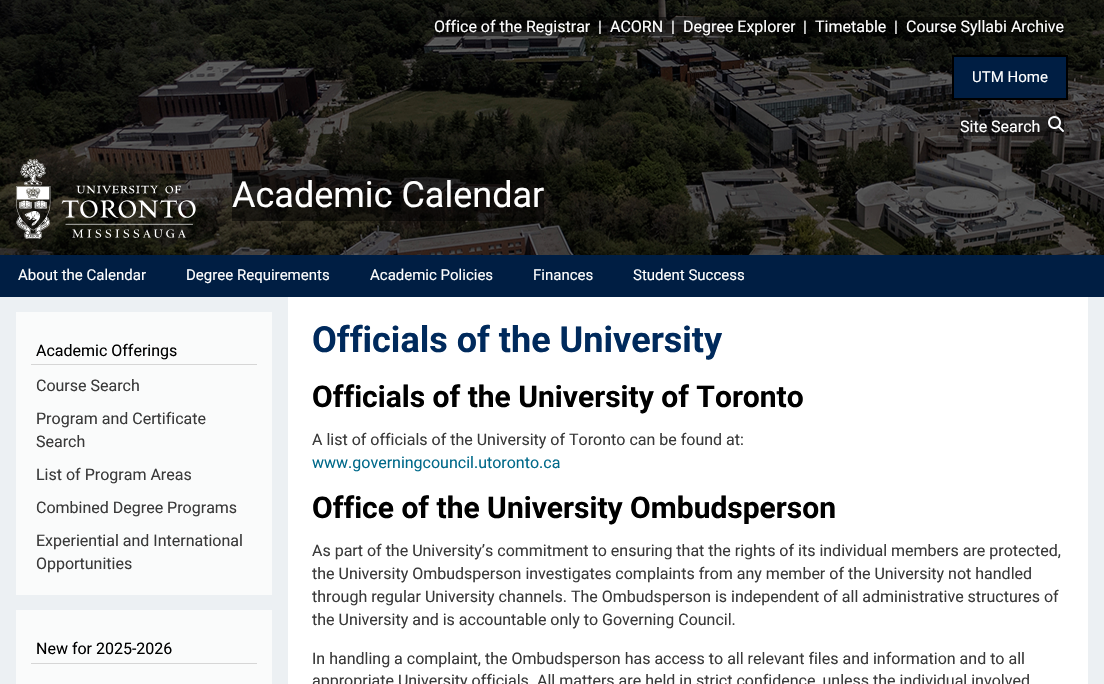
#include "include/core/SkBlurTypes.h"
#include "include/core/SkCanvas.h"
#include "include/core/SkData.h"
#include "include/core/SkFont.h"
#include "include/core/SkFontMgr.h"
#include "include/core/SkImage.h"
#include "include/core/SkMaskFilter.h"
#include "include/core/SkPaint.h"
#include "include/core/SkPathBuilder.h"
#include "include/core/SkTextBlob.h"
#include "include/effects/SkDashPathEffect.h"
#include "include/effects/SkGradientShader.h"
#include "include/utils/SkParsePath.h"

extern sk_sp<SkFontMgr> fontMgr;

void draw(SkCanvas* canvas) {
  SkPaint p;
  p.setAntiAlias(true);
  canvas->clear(SK_ColorWHITE);
  canvas->drawImageRect(SkImages::DeferredFromEncodedData(SkData::MakeFromFileName("images/1.png")), SkRect::MakeLTRB(0, 0, 1104, 255), SkSamplingOptions());
  p.setColor(SkColorSetARGB(128, 0, 0, 0));
  canvas->drawRect(SkRect::MakeLTRB(434, 17, 590, 36), p);
  canvas->drawRect(SkRect::MakeLTRB(590, 17, 610, 36), p);
  canvas->drawRect(SkRect::MakeLTRB(610, 17, 663, 36), p);
  canvas->drawRect(SkRect::MakeLTRB(663, 17, 683, 36), p);
  canvas->drawRect(SkRect::MakeLTRB(683, 17, 795, 36), p);
  canvas->drawRect(SkRect::MakeLTRB(815, 17, 886, 36), p);
  canvas->drawRect(SkRect::MakeLTRB(886, 17, 906, 36), p);
  canvas->drawRect(SkRect::MakeLTRB(906, 17, 1064, 36), p);
  p.setColor(SkColorSetRGB(0, 30, 67));
  canvas->drawRect(SkRect::MakeLTRB(953, 56, 1067, 99), p);
  p.setStyle(SkPaint::kStroke_Style);
  p.setStrokeWidth(2);
  p.setColor(SK_ColorBLACK);
  canvas->drawRect(SkRect::MakeLTRB(953, 56, 1067, 99), p);
  p.setStyle(SkPaint::kFill_Style);
  p.setColor(SkColorSetARGB(128, 0, 0, 0));
  canvas->drawRect(SkRect::MakeLTRB(960, 117, 1048, 136), p);
  canvas->drawRect(SkRect::MakeLTRB(1048, 116, 1064, 132), p);
  canvas->drawImageRect(SkImages::DeferredFromEncodedData(SkData::MakeFromFileName("images/2.png")), SkRect::MakeLTRB(1048, 116, 1064, 132), SkSamplingOptions());
  canvas->drawImageRect(SkImages::DeferredFromEncodedData(SkData::MakeFromFileName("images/3.png")), SkRect::MakeLTRB(16, 159, 196, 239), SkSamplingOptions());
  canvas->drawRect(SkRect::MakeLTRB(232, 170, 544, 221), p);
  p.setColor(SkColorSetRGB(0, 30, 67));
  canvas->drawRect(SkRect::MakeLTRB(0, 255, 1104, 297), p);
  p.setColor(SkColorSetRGB(236, 240, 243));
  canvas->drawRect(SkRect::MakeLTRB(0, 297, 1104, 684), p);
  p.setColor(SkColorSetRGB(250, 251, 251));
  canvas->drawRect(SkRect::MakeLTRB(16, 312, 272, 595), p);
  p.setColor(SkColorSetRGB(214, 214, 214));
  canvas->drawRect(SkRect::MakeLTRB(31, 364, 257, 365), p);
  p.setColor(SkColorSetRGB(250, 251, 251));
  canvas->drawRect(SkRect::MakeLTRB(16, 610, 272, 684), p);
  p.setColor(SkColorSetRGB(214, 214, 214));
  canvas->drawRect(SkRect::MakeLTRB(31, 663, 257, 664), p);
  p.setColor(SK_ColorWHITE);
  canvas->drawRect(SkRect::MakeLTRB(288, 297, 1088, 684), p);
  SkFont font1(fontMgr->matchFamilyStyle("Roboto", SkFontStyle::Normal()), 16);
  font1.setSubpixel(true);
  canvas->drawString("Office of the Registrar", 434, 32, font1, p);
  canvas->drawString("|", 598, 32, font1, p);
  canvas->drawString("ACORN", 610, 32, font1, p);
  canvas->drawString("|", 671, 32, font1, p);
  canvas->drawString("Degree Explorer", 683, 32, font1, p);
  p.setColor(SkColorSetARGB(128, 0, 0, 0));
  canvas->drawRect(SkRect::MakeLTRB(795, 17, 815, 36), p);
  p.setColor(SK_ColorWHITE);
  canvas->drawString("|", 803, 32, font1, p);
  canvas->drawString("Timetable", 815, 32, font1, p);
  canvas->drawString("|", 894, 32, font1, p);
  canvas->drawString("Course Syllabi Archive", 906, 32, font1, p);
  SkFont font2(fontMgr->matchFamilyStyle("Roboto", SkFontStyle::Normal()), 15);
  font2.setSubpixel(true);
  canvas->drawString("UTM Home", 972, 82, font2, p);
  canvas->drawString("Site Search", 960, 132, font1, p);
  SkFont font3(fontMgr->matchFamilyStyle("Roboto", SkFontStyle::Normal()), 36);
  font3.setSubpixel(true);
  canvas->drawString("Academic Calendar", 232, 207, font3, p);
  canvas->drawString("About the Calendar", 18, 280, font2, p);
  canvas->drawString("Degree Requirements", 186, 280, font2, p);
  canvas->drawString("Academic Policies", 370, 280, font2, p);
  canvas->drawString("Finances", 533, 280, font2, p);
  canvas->drawString("Student Success", 633, 280, font2, p);
  p.setColor(SK_ColorBLACK);
  canvas->drawString("Academic Offerings", 36, 356, font1, p);
  p.setColor(SkColorSetRGB(58, 58, 58));
  canvas->drawString("Course Search", 36, 391, font1, p);
  canvas->drawString("Program and Certificate", 36, 424, font1, p);
  canvas->drawString("Search", 36, 447, font1, p);
  canvas->drawString("List of Program Areas", 36, 480, font1, p);
  canvas->drawString("Combined Degree Programs", 36, 513, font1, p);
  canvas->drawString("Experiential and International", 36, 546, font1, p);
  canvas->drawString("Opportunities", 36, 569, font1, p);
  p.setColor(SK_ColorBLACK);
  canvas->drawString("New for 2025-2026", 36, 654, font1, p);
  SkFont font4(fontMgr->matchFamilyStyle("Roboto", SkFontStyle::Bold()), 36);
  font4.setSubpixel(true);
  p.setColor(SkColorSetRGB(0, 42, 92));
  canvas->drawString("Officials of the University", 312, 352, font4, p);
  SkFont font5(fontMgr->matchFamilyStyle("Roboto", SkFontStyle::Bold()), 30);
  font5.setSubpixel(true);
  p.setColor(SK_ColorBLACK);
  canvas->drawString("Officials of the University of Toronto", 312, 407, font5, p);
  p.setColor(SkColorSetRGB(58, 58, 58));
  canvas->drawString("A list of officials of the University of Toronto can be found at:", 312, 445, font1, p);
  p.setColor(SkColorSetRGB(1, 106, 138));
  canvas->drawString("www.governingcouncil.utoronto.ca", 312, 468, font1, p);
  p.setColor(SK_ColorBLACK);
  canvas->drawString("Office of the University Ombudsperson", 312, 518, font5, p);
  p.setColor(SkColorSetRGB(58, 58, 58));
  canvas->drawString("As part of the University’s commitment to ensuring that the rights of its individual members are protected,", 312, 556, font1, p);
  canvas->drawString("the University Ombudsperson investigates complaints from any member of the University not handled", 312, 579, font1, p);
  canvas->drawString("through regular University channels. The Ombudsperson is independent of all administrative structures of", 312, 602, font1, p);
  canvas->drawString("the University and is accountable only to Governing Council.", 312, 625, font1, p);
  canvas->drawString("In handling a complaint, the Ombudsperson has access to all relevant files and information and to all", 312, 664, font1, p);
  canvas->drawString("appropriate University officials. All matters are held in strict confidence, unless the individual involved", 312, 686, font1, p);
}
